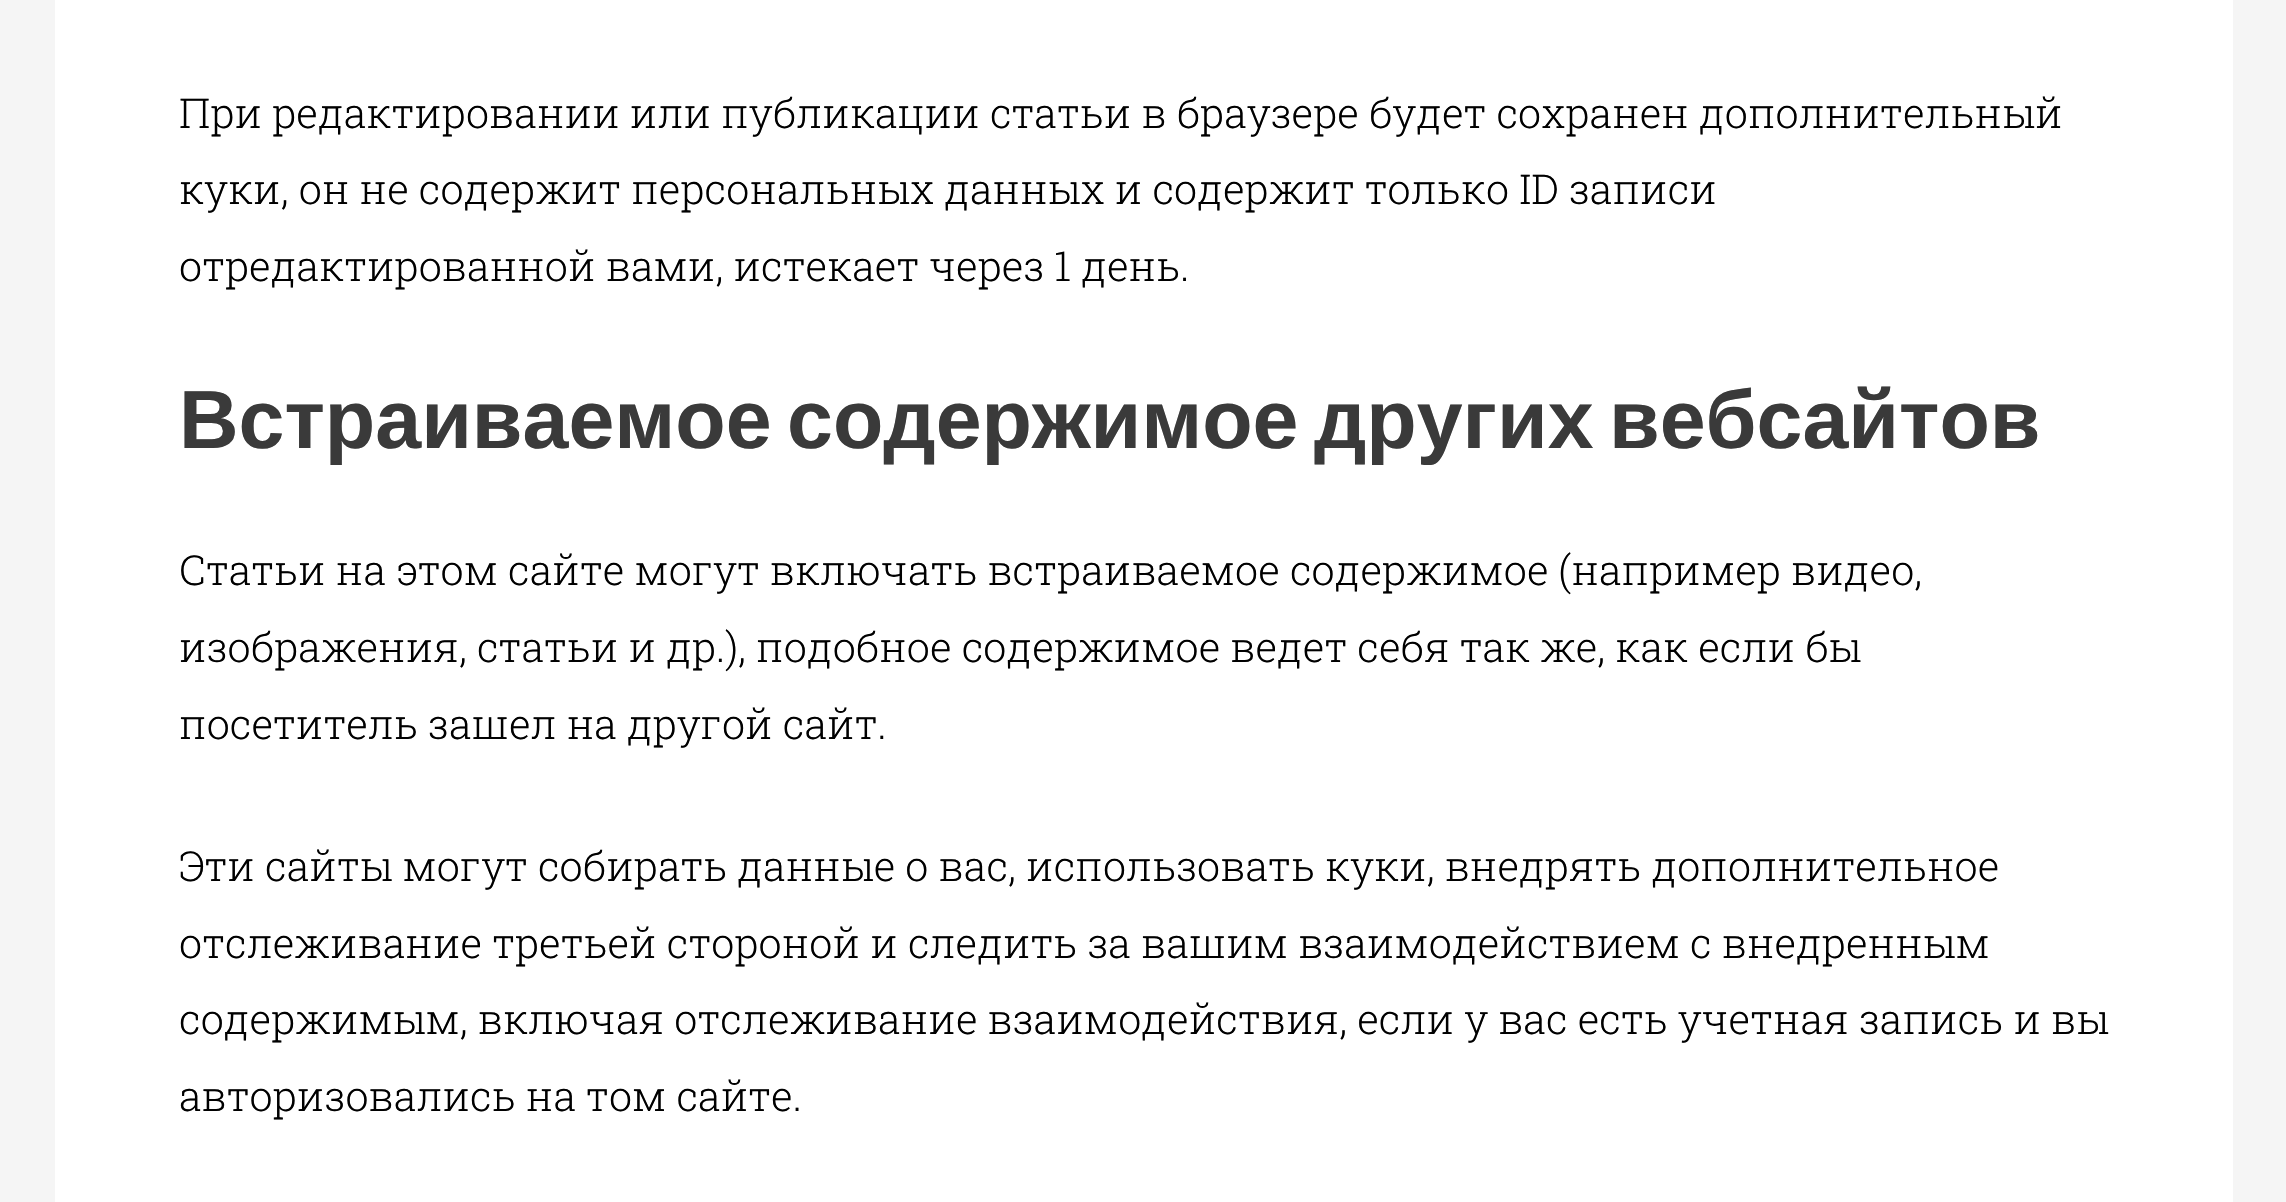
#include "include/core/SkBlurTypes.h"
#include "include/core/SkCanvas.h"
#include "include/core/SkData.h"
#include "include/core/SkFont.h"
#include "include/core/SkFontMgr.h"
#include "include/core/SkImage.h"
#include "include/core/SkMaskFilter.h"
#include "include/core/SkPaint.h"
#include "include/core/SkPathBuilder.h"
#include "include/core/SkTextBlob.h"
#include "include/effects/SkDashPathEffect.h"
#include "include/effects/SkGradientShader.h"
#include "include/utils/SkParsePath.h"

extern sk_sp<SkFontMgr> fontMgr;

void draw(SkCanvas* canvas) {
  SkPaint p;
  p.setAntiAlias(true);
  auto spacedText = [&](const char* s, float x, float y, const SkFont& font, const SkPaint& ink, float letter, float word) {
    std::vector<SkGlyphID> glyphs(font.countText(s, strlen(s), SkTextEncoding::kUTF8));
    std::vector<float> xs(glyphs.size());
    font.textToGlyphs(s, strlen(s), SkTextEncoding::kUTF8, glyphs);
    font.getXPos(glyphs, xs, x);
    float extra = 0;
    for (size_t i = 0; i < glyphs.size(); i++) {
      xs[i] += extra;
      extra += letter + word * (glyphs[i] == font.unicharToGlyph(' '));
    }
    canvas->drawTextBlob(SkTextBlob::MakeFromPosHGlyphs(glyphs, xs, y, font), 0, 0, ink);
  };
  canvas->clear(SkColorSetRGB(245, 245, 245));
  p.setColor(SK_ColorWHITE);
  canvas->drawRect(SkRect::MakeLTRB(55, 0, 2233, 1202), p);
  SkFont font1(fontMgr->matchFamilyStyle("Roboto Slab", SkFontStyle(300, SkFontStyle::kNormal_Width, SkFontStyle::kUpright_Slant)), 41.25f);
  font1.setSubpixel(true);
  p.setColor(SK_ColorBLACK);
  canvas->drawString("При редактировании или публикации статьи в браузере будет сохранен дополнительный", 179, 128, font1, p);
  canvas->drawString("куки, он не содержит персональных данных и содержит только ID записи", 179, 204, font1, p);
  canvas->drawString("отредактированной вами, истекает через 1 день.", 179, 281, font1, p);
  SkFont font2(fontMgr->matchFamilyStyle("Liberation Sans", SkFontStyle::Bold()), 82.5f);
  font2.setSubpixel(true);
  p.setColor(SkColorSetRGB(58, 58, 58));
  spacedText("Встраиваемое содержимое других вебсайтов", 179, 448, font2, p, 0, -7.5f);
  p.setColor(SK_ColorBLACK);
  canvas->drawString("Статьи на этом сайте могут включать встраиваемое содержимое (например видео,", 179, 585, font1, p);
  canvas->drawString("изображения, статьи и др.), подобное содержимое ведет себя так же, как если бы", 179, 662, font1, p);
  canvas->drawString("посетитель зашел на другой сайт.", 179, 739, font1, p);
  canvas->drawString("Эти сайты могут собирать данные о вас, использовать куки, внедрять дополнительное", 179, 881, font1, p);
  canvas->drawString("отслеживание третьей стороной и следить за вашим взаимодействием с внедренным", 179, 958, font1, p);
  canvas->drawString("содержимым, включая отслеживание взаимодействия, если у вас есть учетная запись и вы", 179, 1034, font1, p);
  canvas->drawString("авторизовались на том сайте.", 179, 1111, font1, p);
}
